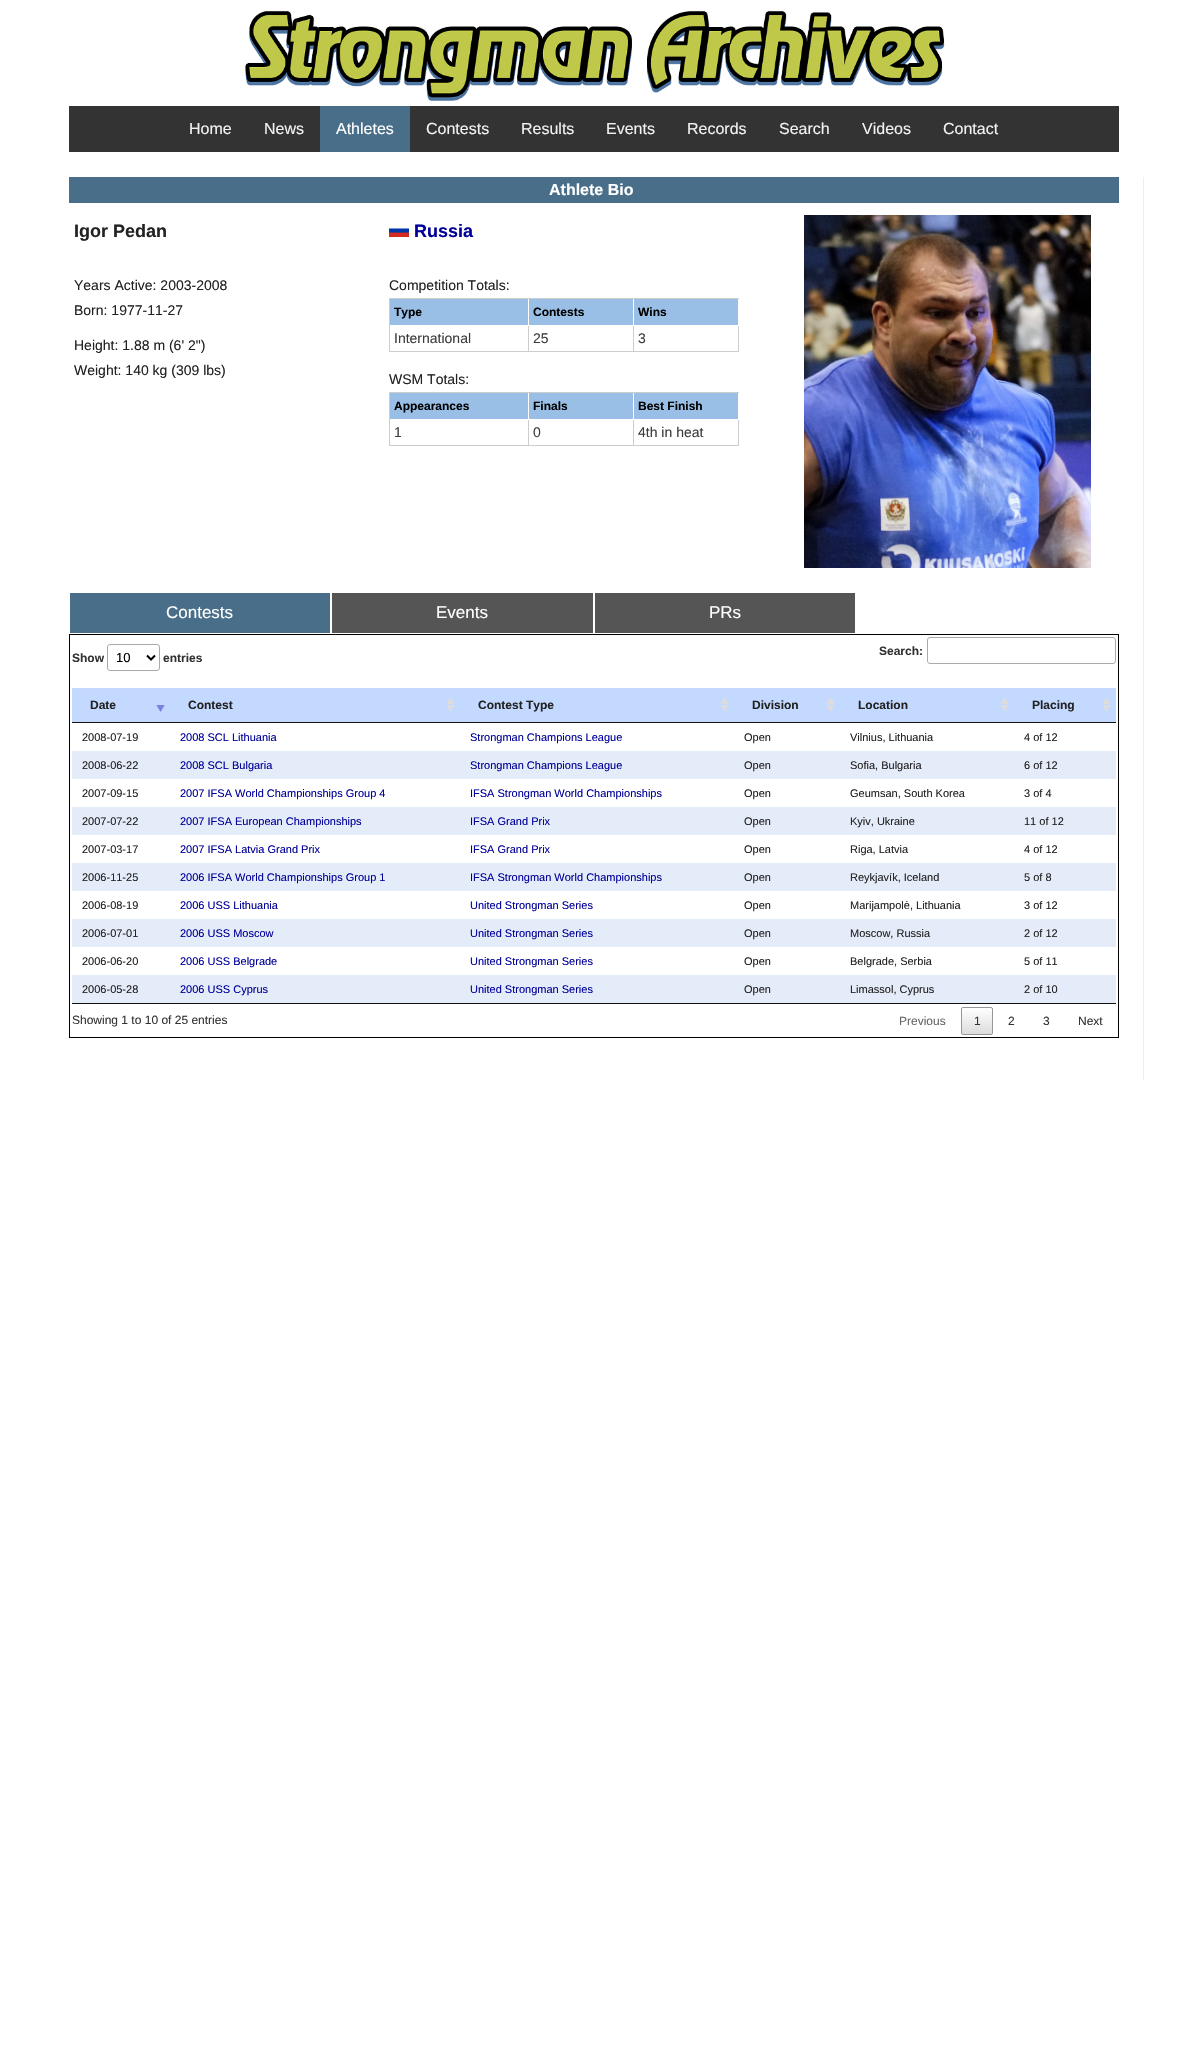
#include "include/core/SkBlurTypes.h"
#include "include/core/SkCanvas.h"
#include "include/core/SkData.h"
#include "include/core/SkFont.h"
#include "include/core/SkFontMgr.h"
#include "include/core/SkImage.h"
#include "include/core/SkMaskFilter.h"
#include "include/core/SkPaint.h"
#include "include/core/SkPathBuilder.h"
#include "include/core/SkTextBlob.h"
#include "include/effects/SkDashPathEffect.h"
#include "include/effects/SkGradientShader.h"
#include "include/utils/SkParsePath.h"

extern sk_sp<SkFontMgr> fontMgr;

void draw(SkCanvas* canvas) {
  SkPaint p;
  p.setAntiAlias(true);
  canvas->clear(SK_ColorWHITE);
  canvas->drawImageRect(SkImages::DeferredFromEncodedData(SkData::MakeFromFileName("images/1.png")), SkRect::MakeLTRB(245, 10, 945, 101), SkSamplingOptions());
  p.setColor(SkColorSetRGB(51, 51, 51));
  canvas->drawRect(SkRect::MakeLTRB(69, 106, 1119, 152), p);
  p.setColor(SkColorSetRGB(73, 110, 137));
  canvas->drawRect(SkRect::MakeLTRB(320, 106, 410, 152), p);
  p.setColor(SkColorSetRGB(238, 238, 238));
  canvas->drawRect(SkRect::MakeLTRB(1143, 177, 1144, 1080), p);
  p.setColor(SkColorSetRGB(73, 110, 137));
  canvas->drawRect(SkRect::MakeLTRB(69, 177, 1119, 203), p);
  canvas->drawImageRect(SkImages::DeferredFromEncodedData(SkData::MakeFromFileName("images/2.png")), SkRect::MakeLTRB(389, 228, 409, 237), SkSamplingOptions());
  p.setColor(SkColorSetRGB(205, 205, 205));
  canvas->drawRect(SkRect::MakeLTRB(389, 298, 739, 299), p);
  canvas->drawRect(SkRect::MakeLTRB(389, 298, 390, 352), p);
  p.setColor(SkColorSetRGB(153, 191, 230));
  canvas->drawRect(SkRect::MakeLTRB(390, 299, 528, 325), p);
  canvas->drawRect(SkRect::MakeLTRB(529, 299, 633, 325), p);
  canvas->drawRect(SkRect::MakeLTRB(634, 299, 738, 325), p);
  p.setColor(SkColorSetRGB(205, 205, 205));
  canvas->drawRect(SkRect::MakeLTRB(528, 326, 529, 352), p);
  canvas->drawRect(SkRect::MakeLTRB(390, 351, 529, 352), p);
  canvas->drawRect(SkRect::MakeLTRB(633, 326, 634, 352), p);
  canvas->drawRect(SkRect::MakeLTRB(529, 351, 634, 352), p);
  canvas->drawRect(SkRect::MakeLTRB(738, 326, 739, 352), p);
  canvas->drawRect(SkRect::MakeLTRB(634, 351, 739, 352), p);
  canvas->drawRect(SkRect::MakeLTRB(389, 392, 739, 393), p);
  canvas->drawRect(SkRect::MakeLTRB(389, 392, 390, 446), p);
  p.setColor(SkColorSetRGB(153, 191, 230));
  canvas->drawRect(SkRect::MakeLTRB(390, 393, 528, 419), p);
  canvas->drawRect(SkRect::MakeLTRB(529, 393, 633, 419), p);
  canvas->drawRect(SkRect::MakeLTRB(634, 393, 738, 419), p);
  p.setColor(SkColorSetRGB(205, 205, 205));
  canvas->drawRect(SkRect::MakeLTRB(528, 420, 529, 446), p);
  canvas->drawRect(SkRect::MakeLTRB(390, 445, 529, 446), p);
  canvas->drawRect(SkRect::MakeLTRB(633, 420, 634, 446), p);
  canvas->drawRect(SkRect::MakeLTRB(529, 445, 634, 446), p);
  canvas->drawRect(SkRect::MakeLTRB(738, 420, 739, 446), p);
  canvas->drawRect(SkRect::MakeLTRB(634, 445, 739, 446), p);
  canvas->drawImageRect(SkImages::DeferredFromEncodedData(SkData::MakeFromFileName("images/3.png")), SkRect::MakeLTRB(804, 215, 1091, 568), SkSamplingOptions());
  p.setColor(SkColorSetRGB(73, 110, 137));
  canvas->drawRect(SkRect::MakeLTRB(70, 593, 330, 633), p);
  p.setColor(SkColorSetRGB(85, 85, 85));
  canvas->drawRect(SkRect::MakeLTRB(332, 593, 593, 633), p);
  canvas->drawRect(SkRect::MakeLTRB(595, 593, 855, 633), p);
  p.setStyle(SkPaint::kStroke_Style);
  p.setStrokeWidth(1);
  p.setColor(SK_ColorBLACK);
  canvas->drawRect(SkRect::MakeLTRB(69.5f, 634.5f, 1118.5f, 1037.5f), p);
  p.setColor(SkColorSetRGB(170, 170, 170));
  canvas->drawRoundRect(SkRect::MakeLTRB(927.5f, 637.5f, 1115.5f, 663.5f), 2.5f, 2.5f, p);
  canvas->drawRoundRect(SkRect::MakeLTRB(107.5f, 644.5f, 159.5f, 670.5f), 2.5f, 2.5f, p);
  p.setStrokeWidth(2);
  p.setColor(SK_ColorBLACK);
  canvas->drawPath(SkPathBuilder().moveTo(147, 655.5f).lineTo(151, 659.5f).lineTo(155, 655.5f).detach(), p);
  p.setStyle(SkPaint::kFill_Style);
  p.setColor(SkColorSetRGB(17, 17, 17));
  canvas->drawRect(SkRect::MakeLTRB(72, 1003, 1116, 1004), p);
  p.setColor(SkColorSetRGB(195, 217, 255));
  canvas->drawRect(SkRect::MakeLTRB(72, 688, 1116, 722), p);
  canvas->drawImageRect(SkImages::DeferredFromEncodedData(SkData::MakeFromFileName("images/4.png")), SkRect::MakeLTRB(156, 705, 165, 712), SkSamplingOptions());
  p.setColor(SkColorSetRGB(17, 17, 17));
  canvas->drawRect(SkRect::MakeLTRB(72, 722, 1116, 723), p);
  canvas->drawImageRect(SkImages::DeferredFromEncodedData(SkData::MakeFromFileName("images/5.png")), SkRect::MakeLTRB(446, 697, 455, 712), SkSamplingOptions());
  canvas->drawImageRect(SkImages::DeferredFromEncodedData(SkData::MakeFromFileName("images/5.png")), SkRect::MakeLTRB(720, 697, 729, 712), SkSamplingOptions());
  canvas->drawImageRect(SkImages::DeferredFromEncodedData(SkData::MakeFromFileName("images/5.png")), SkRect::MakeLTRB(826, 697, 835, 712), SkSamplingOptions());
  canvas->drawImageRect(SkImages::DeferredFromEncodedData(SkData::MakeFromFileName("images/5.png")), SkRect::MakeLTRB(1000, 697, 1009, 712), SkSamplingOptions());
  canvas->drawImageRect(SkImages::DeferredFromEncodedData(SkData::MakeFromFileName("images/5.png")), SkRect::MakeLTRB(1102, 697, 1111, 712), SkSamplingOptions());
  p.setColor(SkColorSetRGB(229, 236, 249));
  canvas->drawRect(SkRect::MakeLTRB(72, 751, 1116, 779), p);
  canvas->drawRect(SkRect::MakeLTRB(72, 807, 1116, 835), p);
  canvas->drawRect(SkRect::MakeLTRB(72, 863, 1116, 891), p);
  canvas->drawRect(SkRect::MakeLTRB(72, 919, 1116, 947), p);
  canvas->drawRect(SkRect::MakeLTRB(72, 975, 1116, 1003), p);
  canvas->save();
  canvas->clipPath(SkPathBuilder().moveTo(963, 1007).lineTo(991, 1007).cubicTo(992, 1007, 993, 1008, 993, 1009).lineTo(993, 1033).cubicTo(993, 1034, 992, 1035, 991, 1035).lineTo(963, 1035).cubicTo(962, 1035, 961, 1034, 961, 1033).lineTo(961, 1009).cubicTo(961, 1008, 962, 1007, 963, 1007).close().detach(), true);
  {
    const SkColor colors[] = {SK_ColorWHITE, SkColorSetRGB(220, 220, 220)};
    const float stops[] = {0, 1};
    const SkPoint ends[] = {{977, 1008}, {977, 1034}};
    p.setShader(SkGradientShader::MakeLinear(ends, colors, stops, 2, SkTileMode::kClamp));
    p.setAlpha(255);
  }
  canvas->drawRect(SkRect::MakeLTRB(961, 1008, 993, 1034), p);
  canvas->restore();
  p.setStyle(SkPaint::kStroke_Style);
  p.setStrokeWidth(1);
  p.setShader(nullptr);
  p.setColor(SkColorSetRGB(151, 151, 151));
  canvas->drawRoundRect(SkRect::MakeLTRB(961.5f, 1007.5f, 992.5f, 1034.5f), 1.5f, 1.5f, p);
  SkFont font1(fontMgr->matchFamilyStyle("Liberation Sans", SkFontStyle::Normal()), 16);
  font1.setSubpixel(true);
  p.setStyle(SkPaint::kFill_Style);
  p.setColor(SkColorSetRGB(242, 242, 242));
  canvas->drawString("Home", 189, 134, font1, p);
  canvas->drawString("News", 264, 134, font1, p);
  p.setColor(SK_ColorWHITE);
  canvas->drawString("Athletes", 336, 134, font1, p);
  p.setColor(SkColorSetRGB(242, 242, 242));
  canvas->drawString("Contests", 426, 134, font1, p);
  canvas->drawString("Results", 521, 134, font1, p);
  canvas->drawString("Events", 606, 134, font1, p);
  canvas->drawString("Records", 687, 134, font1, p);
  canvas->drawString("Search", 779, 134, font1, p);
  canvas->drawString("Videos", 862, 134, font1, p);
  canvas->drawString("Contact", 943, 134, font1, p);
  SkFont font2(fontMgr->matchFamilyStyle("Liberation Sans", SkFontStyle::Bold()), 16);
  font2.setSubpixel(true);
  p.setColor(SK_ColorWHITE);
  canvas->drawString("Athlete Bio", 549, 195, font2, p);
  SkFont font3(fontMgr->matchFamilyStyle("Liberation Sans", SkFontStyle::Bold()), 18);
  font3.setSubpixel(true);
  p.setColor(SkColorSetRGB(34, 34, 34));
  canvas->drawString("Igor Pedan", 74, 237, font3, p);
  SkFont font4(fontMgr->matchFamilyStyle("Liberation Sans", SkFontStyle::Normal()), 14);
  font4.setSubpixel(true);
  canvas->drawString("Years Active: 2003-2008", 74, 290, font4, p);
  canvas->drawString("Born: 1977-11-27", 74, 315, font4, p);
  canvas->drawString("Height: 1.88 m (6' 2\")", 74, 350, font4, p);
  canvas->drawString("Weight: 140 kg (309 lbs)", 74, 375, font4, p);
  p.setColor(SkColorSetRGB(0, 0, 153));
  canvas->drawString("Russia", 414, 237, font3, p);
  p.setColor(SkColorSetRGB(34, 34, 34));
  canvas->drawString("Competition Totals:", 389, 290, font4, p);
  SkFont font5(fontMgr->matchFamilyStyle("Liberation Sans", SkFontStyle::Bold()), 12);
  font5.setSubpixel(true);
  p.setColor(SK_ColorBLACK);
  canvas->drawString("Type", 394, 316, font5, p);
  canvas->drawString("Contests", 533, 316, font5, p);
  canvas->drawString("Wins", 638, 316, font5, p);
  p.setColor(SkColorSetRGB(61, 61, 61));
  canvas->drawString("International", 394, 343, font4, p);
  canvas->drawString("25", 533, 343, font4, p);
  canvas->drawString("3", 638, 343, font4, p);
  p.setColor(SkColorSetRGB(34, 34, 34));
  canvas->drawString("WSM Totals:", 389, 384, font4, p);
  p.setColor(SK_ColorBLACK);
  canvas->drawString("Appearances", 394, 410, font5, p);
  canvas->drawString("Finals", 533, 410, font5, p);
  canvas->drawString("Best Finish", 638, 410, font5, p);
  p.setColor(SkColorSetRGB(61, 61, 61));
  canvas->drawString("1", 394, 437, font4, p);
  canvas->drawString("0", 533, 437, font4, p);
  canvas->drawString("4th in heat", 638, 437, font4, p);
  SkFont font6(fontMgr->matchFamilyStyle("Liberation Sans", SkFontStyle::Normal()), 17);
  font6.setSubpixel(true);
  p.setColor(SK_ColorWHITE);
  canvas->drawString("Contests", 166, 618, font6, p);
  canvas->drawString("Events", 436, 618, font6, p);
  canvas->drawString("PRs", 709, 618, font6, p);
  p.setColor(SkColorSetRGB(51, 51, 51));
  canvas->drawString("Search:", 879, 655, font5, p);
  canvas->drawString("Show", 72, 662, font5, p);
  SkFont font7(fontMgr->matchFamilyStyle("Liberation Sans", SkFontStyle::Normal()), 13);
  font7.setSubpixel(true);
  p.setColor(SK_ColorBLACK);
  canvas->drawString("10", 116, 662, font7, p);
  p.setColor(SkColorSetRGB(51, 51, 51));
  canvas->drawString("entries", 163, 662, font5, p);
  p.setColor(SkColorSetRGB(34, 34, 34));
  canvas->drawString("Date", 90, 709, font5, p);
  canvas->drawString("Contest", 188, 709, font5, p);
  canvas->drawString("Contest Type", 478, 709, font5, p);
  canvas->drawString("Division", 752, 709, font5, p);
  canvas->drawString("Location", 858, 709, font5, p);
  canvas->drawString("Placing", 1032, 709, font5, p);
  SkFont font8(fontMgr->matchFamilyStyle("Liberation Sans", SkFontStyle::Normal()), 11);
  font8.setSubpixel(true);
  canvas->drawString("2008-07-19", 82, 741, font8, p);
  p.setColor(SkColorSetRGB(0, 0, 153));
  canvas->drawString("2008 SCL Lithuania", 180, 741, font8, p);
  canvas->drawString("Strongman Champions League", 470, 741, font8, p);
  p.setColor(SkColorSetRGB(34, 34, 34));
  canvas->drawString("Open", 744, 741, font8, p);
  canvas->drawString("Vilnius, Lithuania", 850, 741, font8, p);
  canvas->drawString("4 of 12", 1024, 741, font8, p);
  canvas->drawString("2008-06-22", 82, 769, font8, p);
  p.setColor(SkColorSetRGB(0, 0, 153));
  canvas->drawString("2008 SCL Bulgaria", 180, 769, font8, p);
  canvas->drawString("Strongman Champions League", 470, 769, font8, p);
  p.setColor(SkColorSetRGB(34, 34, 34));
  canvas->drawString("Open", 744, 769, font8, p);
  canvas->drawString("Sofia, Bulgaria", 850, 769, font8, p);
  canvas->drawString("6 of 12", 1024, 769, font8, p);
  canvas->drawString("2007-09-15", 82, 797, font8, p);
  p.setColor(SkColorSetRGB(0, 0, 153));
  canvas->drawString("2007 IFSA World Championships Group 4", 180, 797, font8, p);
  canvas->drawString("IFSA Strongman World Championships", 470, 797, font8, p);
  p.setColor(SkColorSetRGB(34, 34, 34));
  canvas->drawString("Open", 744, 797, font8, p);
  canvas->drawString("Geumsan, South Korea", 850, 797, font8, p);
  canvas->drawString("3 of 4", 1024, 797, font8, p);
  canvas->drawString("2007-07-22", 82, 825, font8, p);
  p.setColor(SkColorSetRGB(0, 0, 153));
  canvas->drawString("2007 IFSA European Championships", 180, 825, font8, p);
  canvas->drawString("IFSA Grand Prix", 470, 825, font8, p);
  p.setColor(SkColorSetRGB(34, 34, 34));
  canvas->drawString("Open", 744, 825, font8, p);
  canvas->drawString("Kyiv, Ukraine", 850, 825, font8, p);
  canvas->drawString("11 of 12", 1024, 825, font8, p);
  canvas->drawString("2007-03-17", 82, 853, font8, p);
  p.setColor(SkColorSetRGB(0, 0, 153));
  canvas->drawString("2007 IFSA Latvia Grand Prix", 180, 853, font8, p);
  canvas->drawString("IFSA Grand Prix", 470, 853, font8, p);
  p.setColor(SkColorSetRGB(34, 34, 34));
  canvas->drawString("Open", 744, 853, font8, p);
  canvas->drawString("Riga, Latvia", 850, 853, font8, p);
  canvas->drawString("4 of 12", 1024, 853, font8, p);
  canvas->drawString("2006-11-25", 82, 881, font8, p);
  p.setColor(SkColorSetRGB(0, 0, 153));
  canvas->drawString("2006 IFSA World Championships Group 1", 180, 881, font8, p);
  canvas->drawString("IFSA Strongman World Championships", 470, 881, font8, p);
  p.setColor(SkColorSetRGB(34, 34, 34));
  canvas->drawString("Open", 744, 881, font8, p);
  canvas->drawString("Reykjavík, Iceland", 850, 881, font8, p);
  canvas->drawString("5 of 8", 1024, 881, font8, p);
  canvas->drawString("2006-08-19", 82, 909, font8, p);
  p.setColor(SkColorSetRGB(0, 0, 153));
  canvas->drawString("2006 USS Lithuania", 180, 909, font8, p);
  canvas->drawString("United Strongman Series", 470, 909, font8, p);
  p.setColor(SkColorSetRGB(34, 34, 34));
  canvas->drawString("Open", 744, 909, font8, p);
  canvas->drawString("Marijampolė, Lithuania", 850, 909, font8, p);
  canvas->drawString("3 of 12", 1024, 909, font8, p);
  canvas->drawString("2006-07-01", 82, 937, font8, p);
  p.setColor(SkColorSetRGB(0, 0, 153));
  canvas->drawString("2006 USS Moscow", 180, 937, font8, p);
  canvas->drawString("United Strongman Series", 470, 937, font8, p);
  p.setColor(SkColorSetRGB(34, 34, 34));
  canvas->drawString("Open", 744, 937, font8, p);
  canvas->drawString("Moscow, Russia", 850, 937, font8, p);
  canvas->drawString("2 of 12", 1024, 937, font8, p);
  canvas->drawString("2006-06-20", 82, 965, font8, p);
  p.setColor(SkColorSetRGB(0, 0, 153));
  canvas->drawString("2006 USS Belgrade", 180, 965, font8, p);
  canvas->drawString("United Strongman Series", 470, 965, font8, p);
  p.setColor(SkColorSetRGB(34, 34, 34));
  canvas->drawString("Open", 744, 965, font8, p);
  canvas->drawString("Belgrade, Serbia", 850, 965, font8, p);
  canvas->drawString("5 of 11", 1024, 965, font8, p);
  canvas->drawString("2006-05-28", 82, 993, font8, p);
  p.setColor(SkColorSetRGB(0, 0, 153));
  canvas->drawString("2006 USS Cyprus", 180, 993, font8, p);
  canvas->drawString("United Strongman Series", 470, 993, font8, p);
  p.setColor(SkColorSetRGB(34, 34, 34));
  canvas->drawString("Open", 744, 993, font8, p);
  canvas->drawString("Limassol, Cyprus", 850, 993, font8, p);
  canvas->drawString("2 of 10", 1024, 993, font8, p);
  SkFont font9(fontMgr->matchFamilyStyle("Liberation Sans", SkFontStyle::Normal()), 12);
  font9.setSubpixel(true);
  p.setColor(SkColorSetRGB(51, 51, 51));
  canvas->drawString("Showing 1 to 10 of 25 entries", 72, 1024, font9, p);
  p.setColor(SkColorSetRGB(102, 102, 102));
  canvas->drawString("Previous", 899, 1025, font9, p);
  p.setColor(SkColorSetRGB(51, 51, 51));
  canvas->drawString("1", 974, 1025, font9, p);
  canvas->drawString("2", 1008, 1025, font9, p);
  canvas->drawString("3", 1043, 1025, font9, p);
  canvas->drawString("Next", 1078, 1025, font9, p);
}
